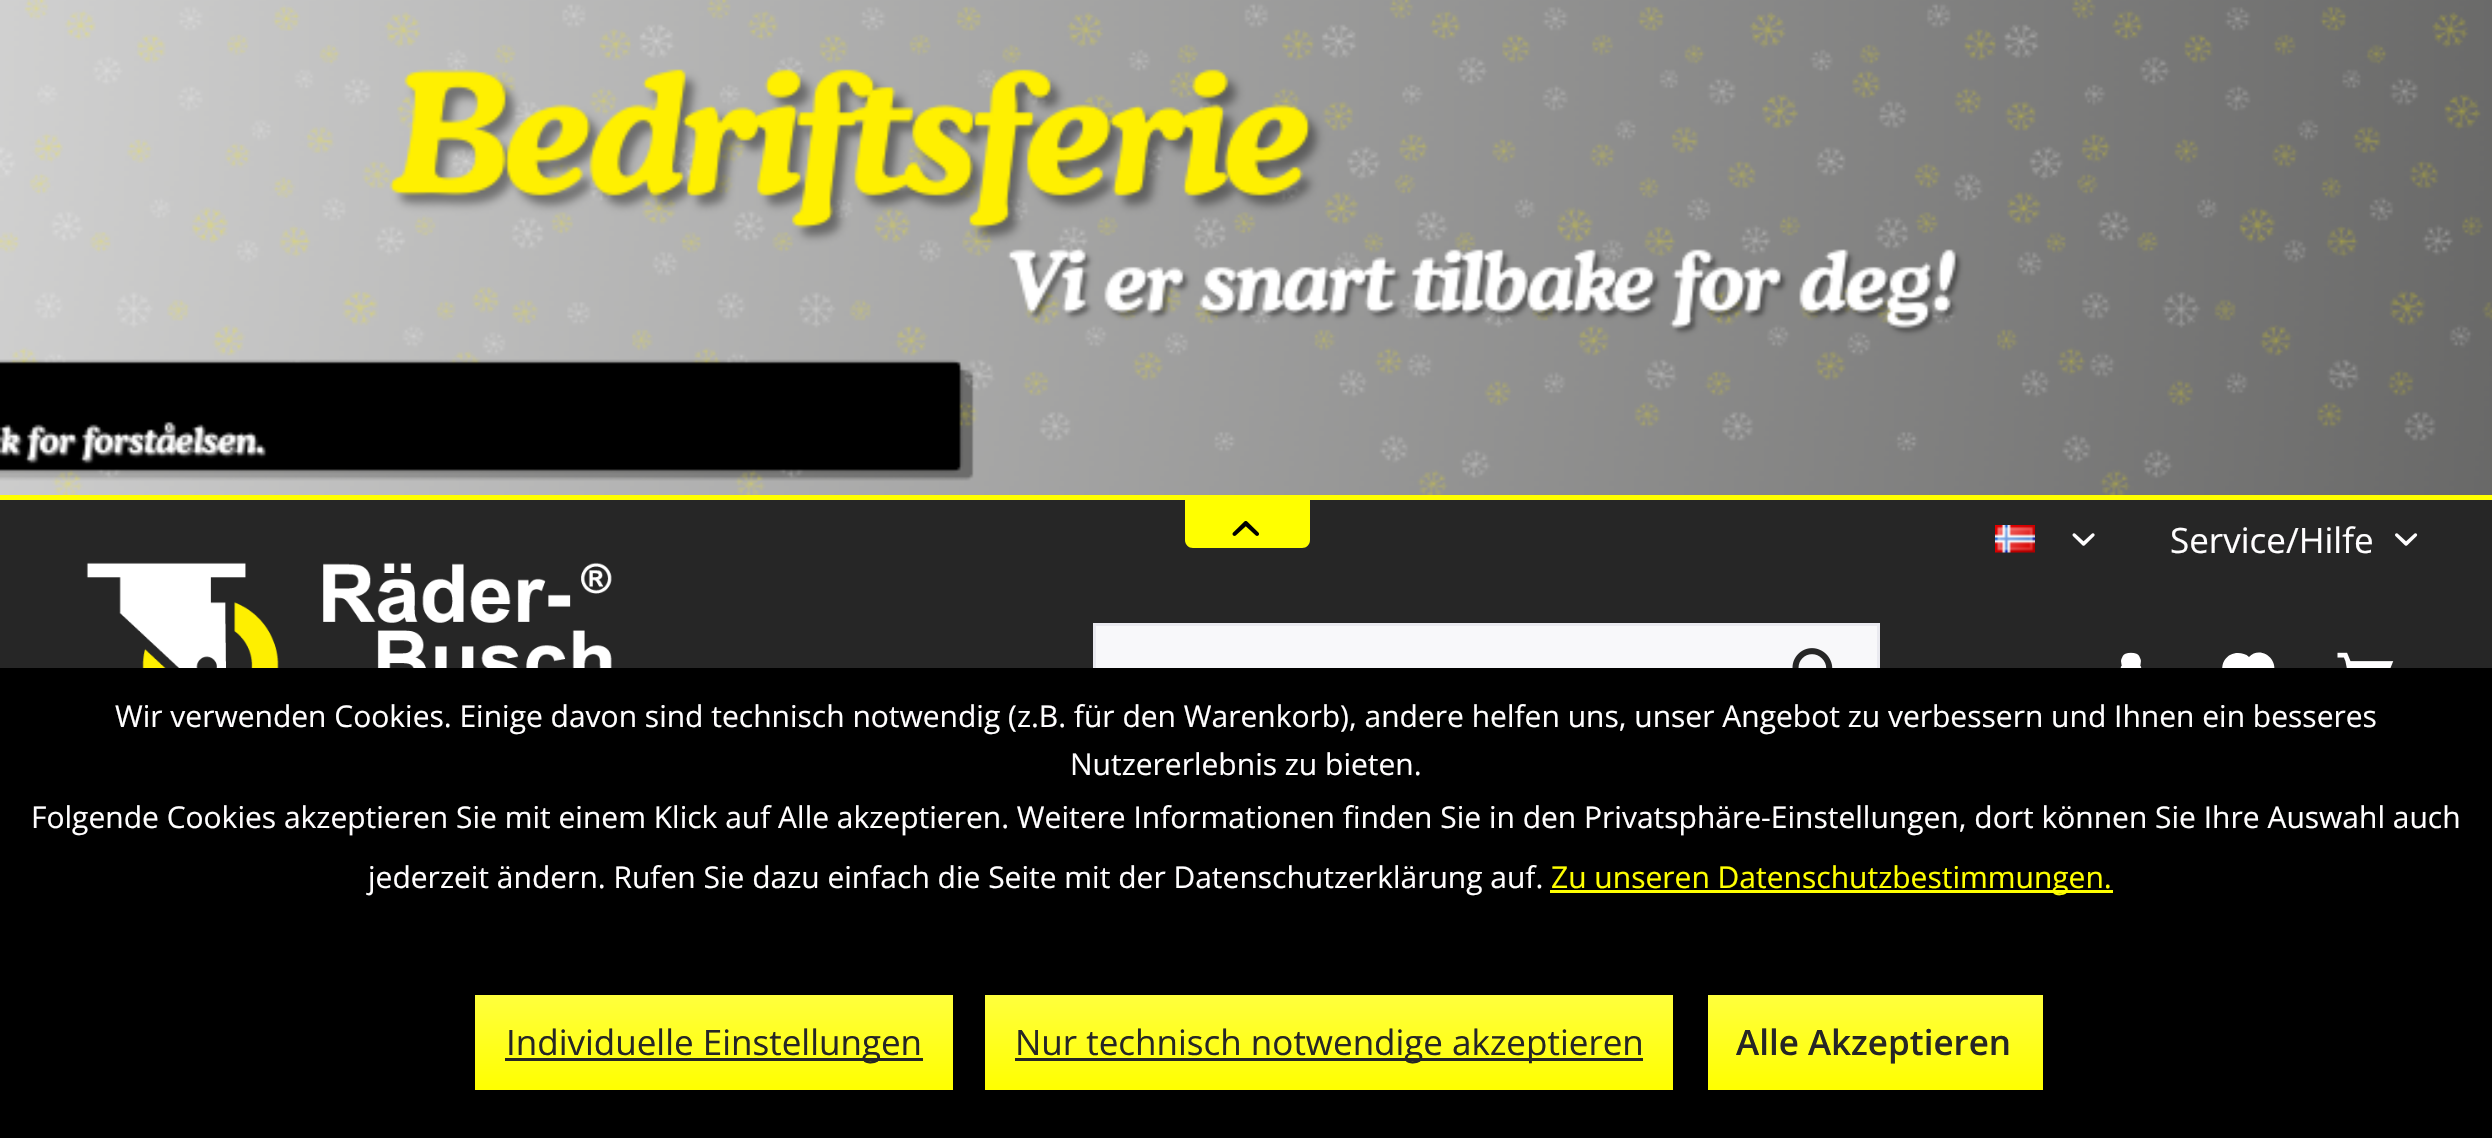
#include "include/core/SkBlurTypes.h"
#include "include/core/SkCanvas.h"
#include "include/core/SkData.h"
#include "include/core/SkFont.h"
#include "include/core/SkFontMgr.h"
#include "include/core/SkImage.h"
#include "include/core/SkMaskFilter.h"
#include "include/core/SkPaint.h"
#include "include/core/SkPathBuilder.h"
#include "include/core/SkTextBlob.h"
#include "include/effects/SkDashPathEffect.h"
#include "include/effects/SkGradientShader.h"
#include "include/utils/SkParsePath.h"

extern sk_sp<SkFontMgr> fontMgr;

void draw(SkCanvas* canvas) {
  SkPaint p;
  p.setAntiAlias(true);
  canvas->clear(SkColorSetRGB(38, 38, 38));
  canvas->drawImageRect(SkImages::DeferredFromEncodedData(SkData::MakeFromFileName("images/1.png")), SkRect::MakeLTRB(0, 0, 2492, 495), SkSamplingOptions());
  p.setColor(SkColorSetRGB(255, 255, 0));
  canvas->drawRect(SkRect::MakeLTRB(0, 495, 2492, 500), p);
  canvas->drawPath(SkPathBuilder().moveTo(1185, 500).lineTo(1310, 500).lineTo(1310, 540).cubicTo(1310, 544.5f, 1306.5f, 548, 1302, 548).lineTo(1193, 548).cubicTo(1188.5f, 548, 1185, 544.5f, 1185, 540).close().detach(), p);
  canvas->drawImageRect(SkImages::DeferredFromEncodedData(SkData::MakeFromFileName("images/2.png")), SkRect::MakeLTRB(1232, 521, 1259, 536), SkSamplingOptions());
  canvas->drawImageRect(SkImages::DeferredFromEncodedData(SkData::MakeFromFileName("images/3.png")), SkRect::MakeLTRB(1995, 525, 2035, 553), SkSamplingOptions());
  canvas->drawImageRect(SkImages::DeferredFromEncodedData(SkData::MakeFromFileName("images/4.png")), SkRect::MakeLTRB(2072, 533, 2095, 546), SkSamplingOptions());
  canvas->drawImageRect(SkImages::DeferredFromEncodedData(SkData::MakeFromFileName("images/5.png")), SkRect::MakeLTRB(2395, 533, 2418, 546), SkSamplingOptions());
  canvas->drawImageRect(SkImages::DeferredFromEncodedData(SkData::MakeFromFileName("images/6.png")), SkRect::MakeLTRB(86, 562, 612, 668), SkSamplingOptions());
  p.setColor(SkColorSetRGB(248, 248, 250));
  canvas->drawRect(SkRect::MakeLTRB(1096, 626, 1877, 668), p);
  p.setStyle(SkPaint::kStroke_Style);
  p.setStrokeWidth(3);
  p.setColor(SkColorSetRGB(234, 234, 240));
  canvas->drawRect(SkRect::MakeLTRB(1094.5f, 624.5f, 1878.5f, 721.5f), p);
  canvas->drawImageRect(SkImages::DeferredFromEncodedData(SkData::MakeFromFileName("images/7.png")), SkRect::MakeLTRB(1792, 648, 1833, 668), SkSamplingOptions());
  canvas->drawImageRect(SkImages::DeferredFromEncodedData(SkData::MakeFromFileName("images/8.png")), SkRect::MakeLTRB(2120, 652, 2142, 668), SkSamplingOptions());
  p.setStyle(SkPaint::kFill_Style);
  p.setColor(SkColorSetRGB(255, 254, 255));
  canvas->drawPath(SkPathBuilder().moveTo(2238, 653).cubicTo(2227, 653, 2220, 663, 2223, 673).cubicTo(2224, 675, 2228, 680, 2228, 680).lineTo(2242, 694).cubicTo(2247, 698, 2249, 699, 2255, 694).lineTo(2262, 687).cubicTo(2266, 683, 2271, 680, 2273, 675).cubicTo(2280, 659, 2260, 645, 2249, 657).cubicTo(2246, 654, 2242, 653, 2238, 653).close().detach(), p);
  canvas->drawImageRect(SkImages::DeferredFromEncodedData(SkData::MakeFromFileName("images/9.png")), SkRect::MakeLTRB(2337, 652, 2394, 668), SkSamplingOptions());
  p.setColor(SK_ColorBLACK);
  canvas->drawRect(SkRect::MakeLTRB(0, 668, 2492, 1138), p);
  p.setColor(SkColorSetRGB(255, 255, 0));
  canvas->drawRect(SkRect::MakeLTRB(1550, 890, 2113, 893), p);
  {
    const SkColor colors[] = {SkColorSetRGB(255, 255, 61), SkColorSetRGB(255, 255, 0)};
    const float stops[] = {0, 1};
    const SkPoint ends[] = {{714, 995}, {714, 1090}};
    p.setShader(SkGradientShader::MakeLinear(ends, colors, stops, 2, SkTileMode::kClamp));
    p.setAlpha(255);
  }
  canvas->drawRect(SkRect::MakeLTRB(475, 995, 953, 1090), p);
  p.setShader(nullptr);
  p.setColor(SkColorSetRGB(38, 38, 38));
  canvas->drawRect(SkRect::MakeLTRB(505, 1058, 923, 1061), p);
  {
    const SkColor colors[] = {SkColorSetRGB(255, 255, 61), SkColorSetRGB(255, 255, 0)};
    const float stops[] = {0, 1};
    const SkPoint ends[] = {{1329, 995}, {1329, 1090}};
    p.setShader(SkGradientShader::MakeLinear(ends, colors, stops, 2, SkTileMode::kClamp));
    p.setAlpha(255);
  }
  canvas->drawRect(SkRect::MakeLTRB(985, 995, 1673, 1090), p);
  p.setShader(nullptr);
  p.setColor(SkColorSetRGB(38, 38, 38));
  canvas->drawRect(SkRect::MakeLTRB(1015, 1058, 1643, 1061), p);
  {
    const SkColor colors[] = {SkColorSetRGB(255, 255, 61), SkColorSetRGB(255, 255, 0)};
    const float stops[] = {0, 1};
    const SkPoint ends[] = {{1875, 995}, {1875, 1090}};
    p.setShader(SkGradientShader::MakeLinear(ends, colors, stops, 2, SkTileMode::kClamp));
    p.setAlpha(255);
  }
  canvas->drawRect(SkRect::MakeLTRB(1708, 995, 2043, 1090), p);
  SkFont font1(fontMgr->matchFamilyStyle("Open Sans", SkFontStyle::Normal()), 35);
  font1.setSubpixel(true);
  p.setShader(nullptr);
  p.setColor(SkColorSetRGB(255, 254, 255));
  canvas->drawString("Service/Hilfe", 2170, 553, font1, p);
  SkFont font2(fontMgr->matchFamilyStyle("Open Sans", SkFontStyle::Normal()), 30);
  font2.setSubpixel(true);
  canvas->drawString("Wir verwenden Cookies. Einige davon sind technisch notwendig (z.B. für den Warenkorb), andere helfen uns, unser Angebot zu verbessern und Ihnen ein besseres", 115, 727, font2, p);
  canvas->drawString("Nutzererlebnis zu bieten.", 1070, 775, font2, p);
  canvas->drawString("Folgende Cookies akzeptieren Sie mit einem Klick auf Alle akzeptieren. Weitere Informationen finden Sie in den Privatsphäre-Einstellungen, dort können Sie Ihre Auswahl auch", 31, 828, font2, p);
  canvas->drawString("jederzeit ändern. Rufen Sie dazu einfach die Seite mit der Datenschutzerklärung auf.", 368, 888, font2, p);
  p.setColor(SkColorSetRGB(255, 255, 0));
  canvas->drawString("Zu unseren Datenschutzbestimmungen.", 1551, 888, font2, p);
  p.setColor(SkColorSetRGB(38, 38, 38));
  canvas->drawString("Individuelle Einstellungen", 506, 1055, font1, p);
  canvas->drawString("Nur technisch notwendige akzeptieren", 1015, 1055, font1, p);
  SkFont font3(fontMgr->matchFamilyStyle("Open Sans", SkFontStyle(600, SkFontStyle::kNormal_Width, SkFontStyle::kUpright_Slant)), 35);
  font3.setSubpixel(true);
  canvas->drawString("Alle Akzeptieren", 1736, 1055, font3, p);
}
